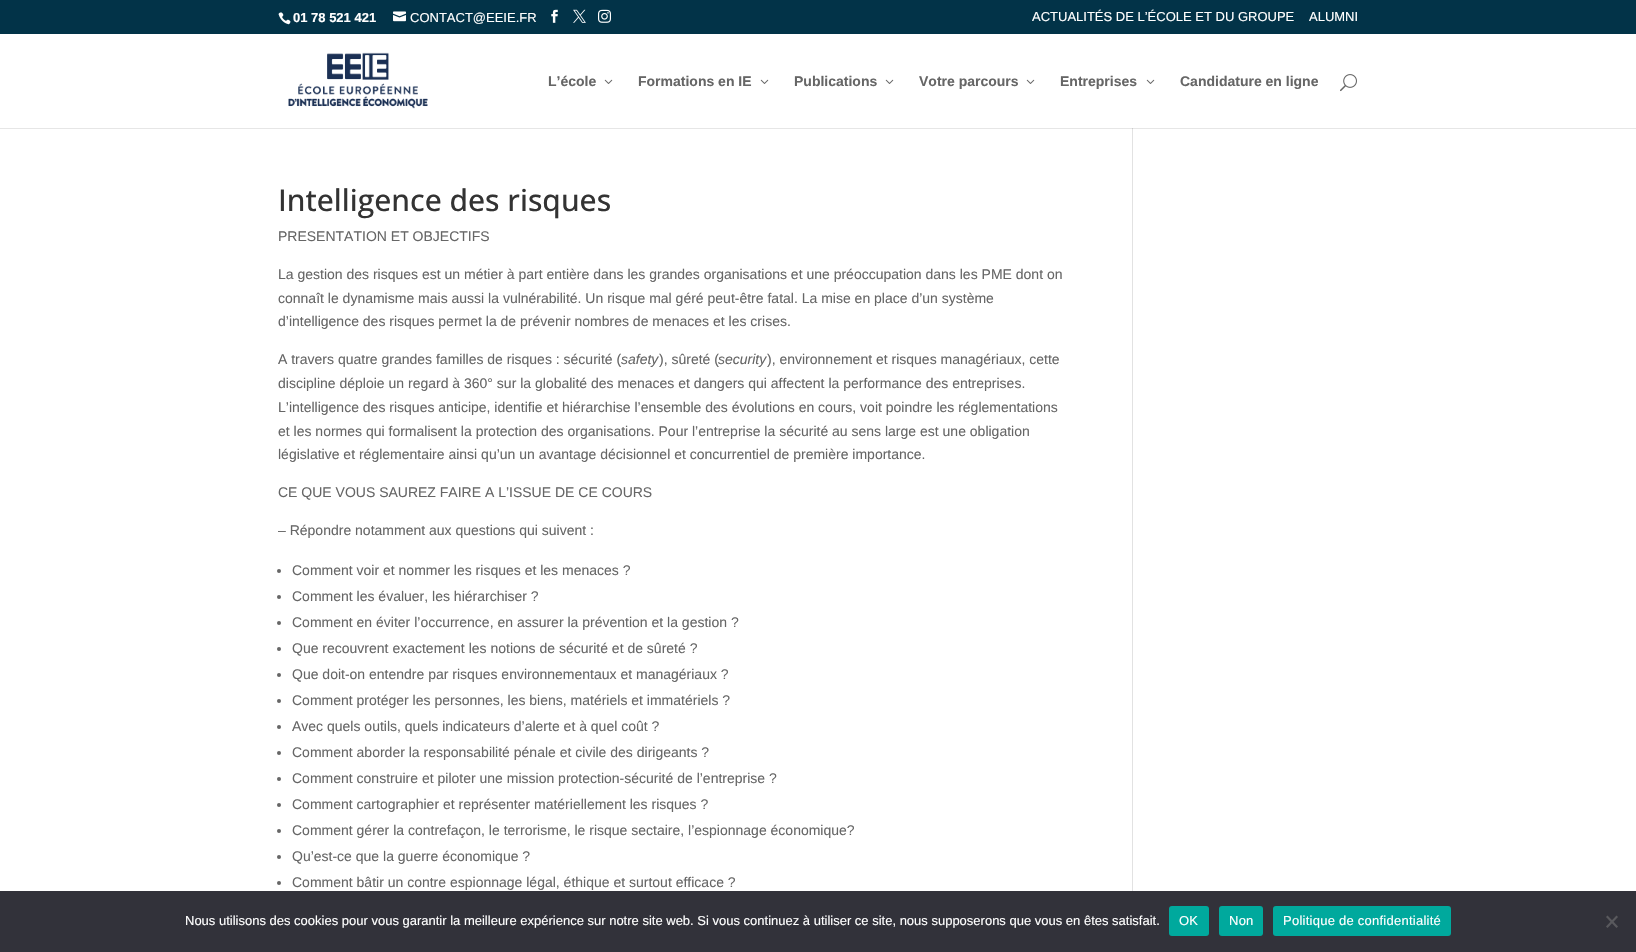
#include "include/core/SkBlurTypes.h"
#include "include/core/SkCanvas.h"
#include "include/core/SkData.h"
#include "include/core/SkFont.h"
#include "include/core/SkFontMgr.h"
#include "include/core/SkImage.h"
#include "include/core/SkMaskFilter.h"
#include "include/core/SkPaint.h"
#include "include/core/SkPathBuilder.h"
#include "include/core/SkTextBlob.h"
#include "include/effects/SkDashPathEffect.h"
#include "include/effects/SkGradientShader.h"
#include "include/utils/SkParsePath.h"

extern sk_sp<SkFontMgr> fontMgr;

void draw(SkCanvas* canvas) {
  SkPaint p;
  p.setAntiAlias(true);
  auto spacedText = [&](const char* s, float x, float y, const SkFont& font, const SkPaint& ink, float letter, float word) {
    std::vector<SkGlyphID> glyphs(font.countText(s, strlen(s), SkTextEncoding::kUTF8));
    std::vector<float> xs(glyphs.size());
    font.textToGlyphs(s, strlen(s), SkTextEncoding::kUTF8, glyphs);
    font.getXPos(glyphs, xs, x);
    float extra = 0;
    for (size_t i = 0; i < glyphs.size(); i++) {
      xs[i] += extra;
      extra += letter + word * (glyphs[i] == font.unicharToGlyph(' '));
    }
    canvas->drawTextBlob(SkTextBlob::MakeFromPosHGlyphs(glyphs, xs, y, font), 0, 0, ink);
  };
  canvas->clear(SK_ColorWHITE);
  p.setColor(SkColorSetRGB(230, 230, 230));
  canvas->drawRect(SkRect::MakeLTRB(0, 128, 1636, 129), p);
  p.setColor(SkColorSetRGB(2, 51, 72));
  canvas->drawRect(SkRect::MakeLTRB(0, 0, 1636, 34), p);
  canvas->drawImageRect(SkImages::DeferredFromEncodedData(SkData::MakeFromFileName("images/1.png")), SkRect::MakeLTRB(278, 12, 291, 25), SkSamplingOptions());
  canvas->drawImageRect(SkImages::DeferredFromEncodedData(SkData::MakeFromFileName("images/2.png")), SkRect::MakeLTRB(393, 11, 406, 22), SkSamplingOptions());
  canvas->drawImageRect(SkImages::DeferredFromEncodedData(SkData::MakeFromFileName("images/3.png")), SkRect::MakeLTRB(551, 9, 558, 23), SkSamplingOptions());
  canvas->drawImageRect(SkImages::DeferredFromEncodedData(SkData::MakeFromFileName("images/4.png")), SkRect::MakeLTRB(573, 9, 586, 23), SkSamplingOptions());
  canvas->drawImageRect(SkImages::DeferredFromEncodedData(SkData::MakeFromFileName("images/5.png")), SkRect::MakeLTRB(598, 9, 611, 23), SkSamplingOptions());
  p.setColor(SkColorSetRGB(226, 226, 226));
  canvas->drawRect(SkRect::MakeLTRB(1132, 127, 1133, 891), p);
  p.setColor(SK_ColorWHITE);
  canvas->drawRect(SkRect::MakeLTRB(1132, 127, 1133, 128), p);
  canvas->drawImageRect(SkImages::DeferredFromEncodedData(SkData::MakeFromFileName("images/6.png")), SkRect::MakeLTRB(288, 52, 428, 109), SkSamplingOptions());
  canvas->drawImageRect(SkImages::DeferredFromEncodedData(SkData::MakeFromFileName("images/7.png")), SkRect::MakeLTRB(604, 79, 613, 84), SkSamplingOptions());
  canvas->drawImageRect(SkImages::DeferredFromEncodedData(SkData::MakeFromFileName("images/7.png")), SkRect::MakeLTRB(760, 79, 769, 84), SkSamplingOptions());
  canvas->drawImageRect(SkImages::DeferredFromEncodedData(SkData::MakeFromFileName("images/7.png")), SkRect::MakeLTRB(885, 79, 894, 84), SkSamplingOptions());
  canvas->drawImageRect(SkImages::DeferredFromEncodedData(SkData::MakeFromFileName("images/7.png")), SkRect::MakeLTRB(1026, 79, 1035, 84), SkSamplingOptions());
  canvas->drawImageRect(SkImages::DeferredFromEncodedData(SkData::MakeFromFileName("images/7.png")), SkRect::MakeLTRB(1146, 79, 1155, 84), SkSamplingOptions());
  canvas->drawImageRect(SkImages::DeferredFromEncodedData(SkData::MakeFromFileName("images/8.png")), SkRect::MakeLTRB(1340, 74, 1357, 92), SkSamplingOptions());
  p.setColor(SkColorSetRGB(102, 102, 102));
  canvas->drawCircle(279, 571, 2, p);
  canvas->drawCircle(279, 597, 2, p);
  canvas->drawCircle(279, 623, 2, p);
  canvas->drawCircle(279, 649, 2, p);
  canvas->drawCircle(279, 675, 2, p);
  canvas->drawCircle(279, 701, 2, p);
  canvas->drawCircle(279, 727, 2, p);
  canvas->drawCircle(279, 753, 2, p);
  canvas->drawCircle(279, 779, 2, p);
  canvas->drawCircle(279, 805, 2, p);
  canvas->drawCircle(279, 831, 2, p);
  canvas->drawCircle(279, 857, 2, p);
  canvas->drawCircle(279, 883, 2, p);
  p.setColor(SkColorSetRGB(203, 203, 203));
  canvas->drawRect(SkRect::MakeLTRB(1132, 128, 1133, 129), p);
  p.setColor(SkColorSetRGB(50, 50, 58));
  canvas->drawRect(SkRect::MakeLTRB(0, 891, 1636, 952), p);
  p.setColor(SkColorSetRGB(0, 169, 157));
  canvas->drawRoundRect(SkRect::MakeLTRB(1169, 906, 1209, 936), 3, 3, p);
  canvas->drawRoundRect(SkRect::MakeLTRB(1219, 906, 1263, 936), 3, 3, p);
  canvas->drawRoundRect(SkRect::MakeLTRB(1273, 906, 1451, 936), 3, 3, p);
  p.setColor(SkColorSetRGB(89, 89, 93));
  canvas->drawPath(SkPathBuilder().moveTo(1616.5f, 915.5f).lineTo(1618, 917).lineTo(1607.5f, 928).lineTo(1606, 926.5f).close().detach(), p);
  canvas->drawPath(SkPathBuilder().moveTo(1606, 917).lineTo(1607.5f, 915.5f).lineTo(1618, 926.5f).lineTo(1616.5f, 928).close().detach(), p);
  SkFont font1(fontMgr->matchFamilyStyle("Liberation Sans", SkFontStyle::Bold()), 13);
  font1.setSubpixel(true);
  p.setColor(SK_ColorWHITE);
  canvas->drawString("01 78 521 421", 293, 22, font1, p);
  SkFont font2(fontMgr->matchFamilyStyle("Liberation Sans", SkFontStyle::Normal()), 13);
  font2.setSubpixel(true);
  canvas->drawString("CONTACT@EEIE.FR", 410, 22, font2, p);
  canvas->drawString("ACTUALITÉS DE L’ÉCOLE ET DU GROUPE", 1032, 21, font2, p);
  canvas->drawString("ALUMNI", 1309, 21, font2, p);
  SkFont font3(fontMgr->matchFamilyStyle("Liberation Sans", SkFontStyle::Bold()), 14);
  font3.setSubpixel(true);
  p.setColor(SkColorSetRGB(102, 102, 102));
  canvas->drawString("L’école", 548, 86, font3, p);
  canvas->drawString("Formations en IE", 638, 86, font3, p);
  canvas->drawString("Publications", 794, 86, font3, p);
  canvas->drawString("Votre parcours", 919, 86, font3, p);
  canvas->drawString("Entreprises", 1060, 86, font3, p);
  canvas->drawString("Candidature en ligne", 1180, 86, font3, p);
  SkFont font4(fontMgr->matchFamilyStyle("Open Sans", SkFontStyle(500, SkFontStyle::kNormal_Width, SkFontStyle::kUpright_Slant)), 30);
  font4.setSubpixel(true);
  p.setColor(SkColorSetRGB(51, 51, 51));
  canvas->drawString("Intelligence des risques", 278, 211, font4, p);
  SkFont font5(fontMgr->matchFamilyStyle("Liberation Sans", SkFontStyle::Normal()), 14);
  font5.setSubpixel(true);
  p.setColor(SkColorSetRGB(102, 102, 102));
  canvas->drawString("PRESENTATION ET OBJECTIFS", 278, 241, font5, p);
  canvas->drawString("La gestion des risques est un métier à part entière dans les grandes organisations et une préoccupation dans les PME dont on", 278, 279, font5, p);
  canvas->drawString("connaît le dynamisme mais aussi la vulnérabilité. Un risque mal géré peut-être fatal. La mise en place d’un système", 278, 303, font5, p);
  canvas->drawString("d’intelligence des risques permet la de prévenir nombres de menaces et les crises.", 278, 326, font5, p);
  canvas->drawString("A travers quatre grandes familles de risques : sécurité (", 278, 364, font5, p);
  SkFont font6(fontMgr->matchFamilyStyle("Liberation Sans", SkFontStyle::Italic()), 14);
  font6.setSubpixel(true);
  canvas->drawString("safety", 621, 364, font6, p);
  canvas->drawString("), sûreté (", 659, 364, font5, p);
  canvas->drawString("security", 718, 364, font6, p);
  canvas->drawString("), environnement et risques managériaux, cette", 767, 364, font5, p);
  canvas->drawString("discipline déploie un regard à 360° sur la globalité des menaces et dangers qui affectent la performance des entreprises.", 278, 388, font5, p);
  canvas->drawString("L’intelligence des risques anticipe, identifie et hiérarchise l’ensemble des évolutions en cours, voit poindre les réglementations", 278, 412, font5, p);
  canvas->drawString("et les normes qui formalisent la protection des organisations. Pour l’entreprise la sécurité au sens large est une obligation", 278, 436, font5, p);
  canvas->drawString("législative et réglementaire ainsi qu’un un avantage décisionnel et concurrentiel de première importance.", 278, 459, font5, p);
  canvas->drawString("CE QUE VOUS SAUREZ FAIRE A L’ISSUE DE CE COURS", 278, 497, font5, p);
  canvas->drawString("– Répondre notamment aux questions qui suivent :", 278, 535, font5, p);
  canvas->drawString("Comment voir et nommer les risques et les menaces ?", 292, 575, font5, p);
  canvas->drawString("Comment les évaluer, les hiérarchiser ?", 292, 601, font5, p);
  canvas->drawString("Comment en éviter l’occurrence, en assurer la prévention et la gestion ?", 292, 627, font5, p);
  canvas->drawString("Que recouvrent exactement les notions de sécurité et de sûreté ?", 292, 653, font5, p);
  canvas->drawString("Que doit-on entendre par risques environnementaux et managériaux ?", 292, 679, font5, p);
  canvas->drawString("Comment protéger les personnes, les biens, matériels et immatériels ?", 292, 705, font5, p);
  canvas->drawString("Avec quels outils, quels indicateurs d’alerte et à quel coût ?", 292, 731, font5, p);
  canvas->drawString("Comment aborder la responsabilité pénale et civile des dirigeants ?", 292, 757, font5, p);
  canvas->drawString("Comment construire et piloter une mission protection-sécurité de l’entreprise ?", 292, 783, font5, p);
  canvas->drawString("Comment cartographier et représenter matériellement les risques ?", 292, 809, font5, p);
  canvas->drawString("Comment gérer la contrefaçon, le terrorisme, le risque sectaire, l’espionnage économique?", 292, 835, font5, p);
  canvas->drawString("Qu’est-ce que la guerre économique ?", 292, 861, font5, p);
  canvas->drawString("Comment bâtir un contre espionnage légal, éthique et surtout efficace ?", 292, 887, font5, p);
  p.setColor(SK_ColorWHITE);
  canvas->drawString("Nous utilisons des cookies pour vous garantir la meilleure expérience sur notre site web. Si vous continuez à utiliser ce site, nous supposerons que vous en êtes satisfait.", 185, 925, font2, p);
  spacedText("OK", 1179, 925, font2, p, 0.25f, 0);
  spacedText("Non", 1229, 925, font2, p, 0.25f, 0);
  spacedText("Politique de confidentialité", 1283, 925, font2, p, 0.25f, 0);
}
